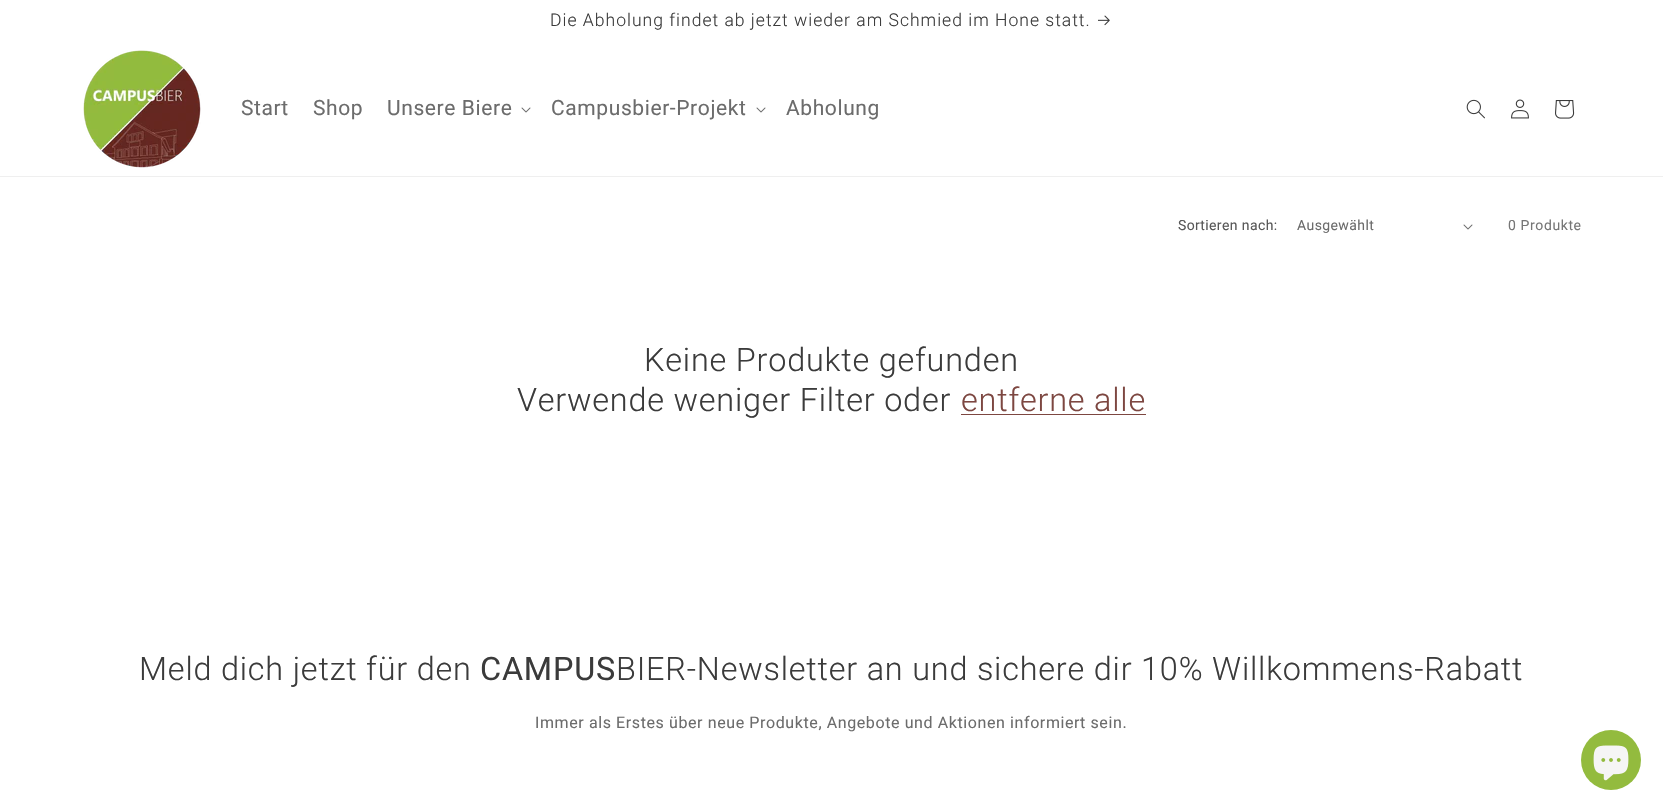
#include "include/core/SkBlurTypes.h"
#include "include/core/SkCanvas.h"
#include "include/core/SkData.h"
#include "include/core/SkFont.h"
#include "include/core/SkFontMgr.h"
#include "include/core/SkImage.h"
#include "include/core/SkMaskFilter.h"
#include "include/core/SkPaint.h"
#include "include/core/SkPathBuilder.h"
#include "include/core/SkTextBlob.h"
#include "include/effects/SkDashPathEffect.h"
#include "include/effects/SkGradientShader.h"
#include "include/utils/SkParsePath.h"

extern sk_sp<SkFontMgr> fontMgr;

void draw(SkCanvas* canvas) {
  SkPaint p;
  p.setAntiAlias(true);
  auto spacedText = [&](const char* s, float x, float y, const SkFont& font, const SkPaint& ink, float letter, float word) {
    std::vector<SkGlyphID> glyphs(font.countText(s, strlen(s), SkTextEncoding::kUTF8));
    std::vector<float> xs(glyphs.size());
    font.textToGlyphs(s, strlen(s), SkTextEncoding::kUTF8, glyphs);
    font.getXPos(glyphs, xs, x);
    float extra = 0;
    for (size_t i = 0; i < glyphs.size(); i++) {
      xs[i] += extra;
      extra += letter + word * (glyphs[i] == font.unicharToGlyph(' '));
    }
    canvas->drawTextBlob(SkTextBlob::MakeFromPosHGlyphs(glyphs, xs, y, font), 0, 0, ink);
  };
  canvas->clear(SK_ColorWHITE);
  canvas->drawImageRect(SkImages::DeferredFromEncodedData(SkData::MakeFromFileName("images/1.png")), SkRect::MakeLTRB(1098, 15, 1110, 26), SkSamplingOptions());
  p.setColor(SkColorSetRGB(239, 239, 239));
  canvas->drawRect(SkRect::MakeLTRB(0, 176, 1663, 177), p);
  canvas->drawImageRect(SkImages::DeferredFromEncodedData(SkData::MakeFromFileName("images/2.png")), SkRect::MakeLTRB(83, 50, 201, 168), SkSamplingOptions());
  canvas->drawImageRect(SkImages::DeferredFromEncodedData(SkData::MakeFromFileName("images/3.png")), SkRect::MakeLTRB(521, 107, 531, 113), SkSamplingOptions());
  canvas->drawImageRect(SkImages::DeferredFromEncodedData(SkData::MakeFromFileName("images/3.png")), SkRect::MakeLTRB(756, 107, 766, 113), SkSamplingOptions());
  canvas->drawImageRect(SkImages::DeferredFromEncodedData(SkData::MakeFromFileName("images/4.png")), SkRect::MakeLTRB(1466, 99, 1485, 119), SkSamplingOptions());
  canvas->drawImageRect(SkImages::DeferredFromEncodedData(SkData::MakeFromFileName("images/5.png")), SkRect::MakeLTRB(1511, 99, 1529, 119), SkSamplingOptions());
  canvas->drawImageRect(SkImages::DeferredFromEncodedData(SkData::MakeFromFileName("images/6.png")), SkRect::MakeLTRB(1555, 100, 1575, 119), SkSamplingOptions());
  canvas->drawImageRect(SkImages::DeferredFromEncodedData(SkData::MakeFromFileName("images/3.png")), SkRect::MakeLTRB(1463, 224, 1473, 230), SkSamplingOptions());
  p.setColor(SkColorSetRGB(125, 71, 65));
  canvas->drawRect(SkRect::MakeLTRB(961, 414, 1146, 415), p);
  p.setColor(SkColorSetRGB(147, 187, 62));
  canvas->drawCircle(1611, 760, 30, p);
  canvas->drawImageRect(SkImages::DeferredFromEncodedData(SkData::MakeFromFileName("images/7.png")), SkRect::MakeLTRB(1593, 745, 1629, 781), SkSamplingOptions());
  SkFont font1(fontMgr->matchFamilyStyle("Roboto", SkFontStyle(300, SkFontStyle::kNormal_Width, SkFontStyle::kUpright_Slant)), 17.55f);
  font1.setSubpixel(true);
  p.setColor(SkColorSetRGB(59, 59, 59));
  spacedText("Die Abholung findet ab jetzt wieder am Schmied im Hone statt.", 550, 26, font1, p, 1, 0);
  SkFont font2(fontMgr->matchFamilyStyle("Roboto", SkFontStyle::Normal()), 21);
  font2.setSubpixel(true);
  p.setColor(SkColorSetRGB(108, 108, 108));
  spacedText("Start", 241, 115, font2, p, 0.6f, 0);
  spacedText("Shop", 313, 115, font2, p, 0.6f, 0);
  spacedText("Unsere Biere", 387, 115, font2, p, 0.6f, 0);
  spacedText("Campusbier-Projekt", 551, 115, font2, p, 0.6f, 0);
  spacedText("Abholung", 786, 115, font2, p, 0.6f, 0);
  SkFont font3(fontMgr->matchFamilyStyle("Roboto", SkFontStyle::Normal()), 14);
  font3.setSubpixel(true);
  p.setColor(SkColorSetRGB(88, 88, 88));
  spacedText("Sortieren nach:", 1178, 230, font3, p, 0.4f, 0);
  p.setColor(SkColorSetRGB(108, 108, 108));
  spacedText("Ausgewählt", 1297, 230, font3, p, 0.4f, 0);
  p.setColor(SkColorSetRGB(118, 118, 118));
  spacedText("0 Produkte", 1508, 230, font3, p, 0.6f, 0);
  SkFont font4(fontMgr->matchFamilyStyle("Roboto", SkFontStyle(300, SkFontStyle::kNormal_Width, SkFontStyle::kUpright_Slant)), 32.4f);
  font4.setSubpixel(true);
  p.setColor(SkColorSetRGB(59, 59, 59));
  spacedText("Keine Produkte gefunden", 644, 371, font4, p, 0.8f, 0);
  spacedText("Verwende weniger Filter oder", 517, 411, font4, p, 0.8f, 0);
  p.setColor(SkColorSetRGB(125, 71, 65));
  spacedText("entferne alle", 961, 411, font4, p, 0.8f, 0);
  p.setColor(SkColorSetRGB(59, 59, 59));
  spacedText("Meld dich jetzt für den", 139, 680, font4, p, 0.8f, 0);
  SkFont font5(fontMgr->matchFamilyStyle("Roboto", SkFontStyle::Normal()), 32.4f);
  font5.setSubpixel(true);
  spacedText("CAMPUS", 480, 680, font5, p, 0.8f, 0);
  spacedText("BIER-Newsletter an und sichere dir 10% Willkommens-Rabatt", 616, 680, font4, p, 0.8f, 0);
  SkFont font6(fontMgr->matchFamilyStyle("Roboto", SkFontStyle::Normal()), 16);
  font6.setSubpixel(true);
  p.setColor(SkColorSetRGB(108, 108, 108));
  spacedText("Immer als Erstes über neue Produkte, Angebote und Aktionen informiert sein.", 535, 728, font6, p, 0.6f, 0);
}
